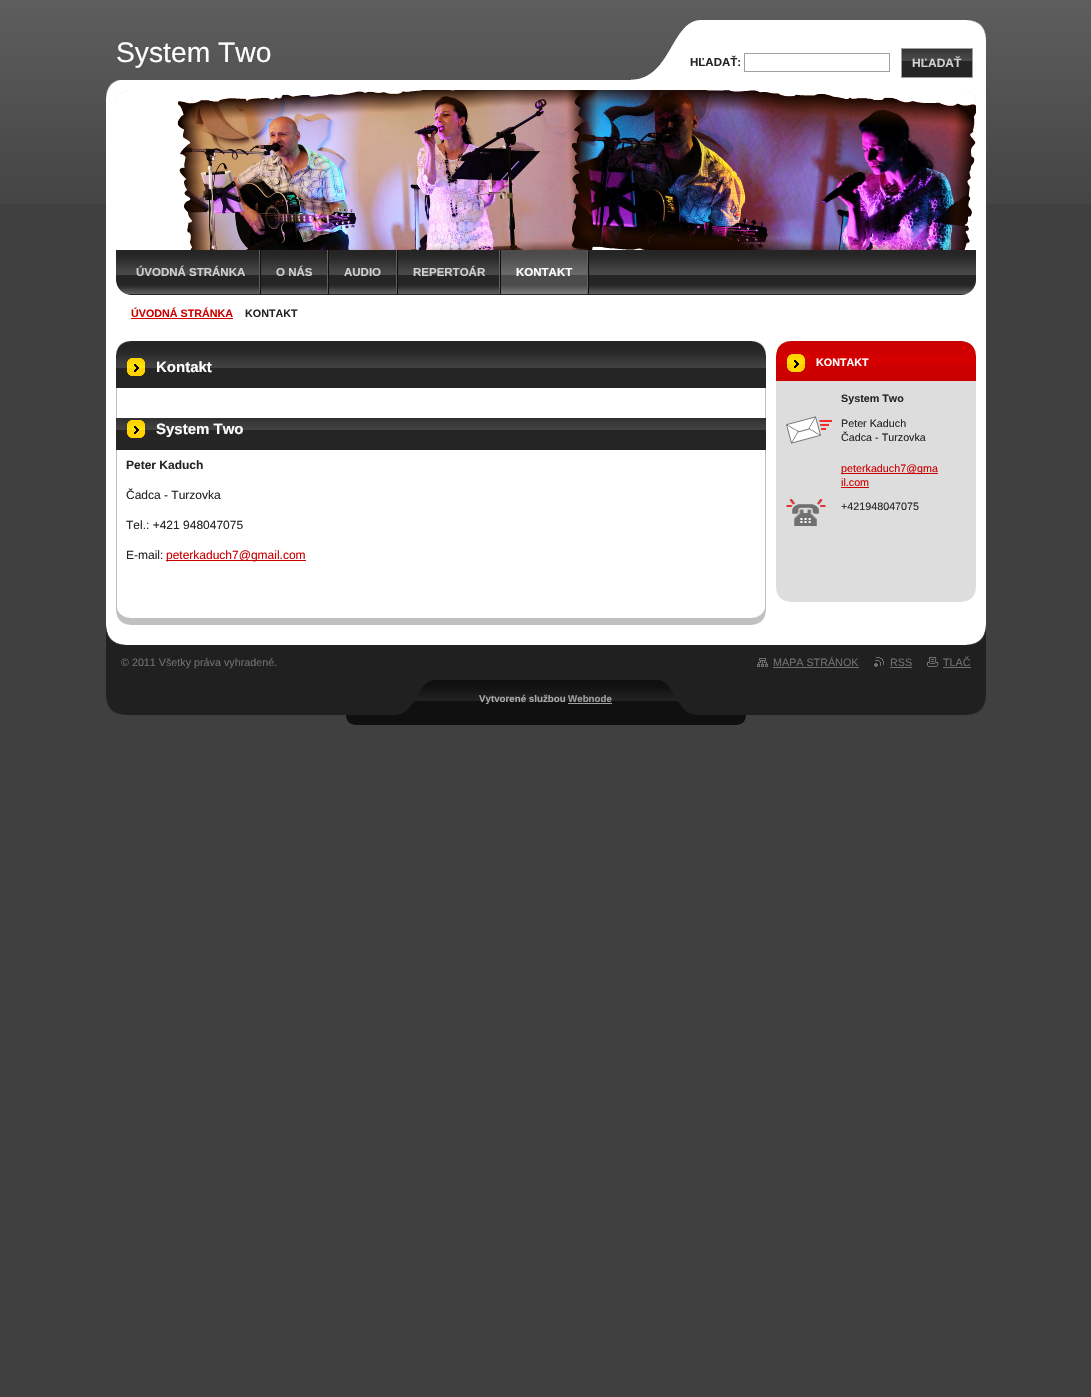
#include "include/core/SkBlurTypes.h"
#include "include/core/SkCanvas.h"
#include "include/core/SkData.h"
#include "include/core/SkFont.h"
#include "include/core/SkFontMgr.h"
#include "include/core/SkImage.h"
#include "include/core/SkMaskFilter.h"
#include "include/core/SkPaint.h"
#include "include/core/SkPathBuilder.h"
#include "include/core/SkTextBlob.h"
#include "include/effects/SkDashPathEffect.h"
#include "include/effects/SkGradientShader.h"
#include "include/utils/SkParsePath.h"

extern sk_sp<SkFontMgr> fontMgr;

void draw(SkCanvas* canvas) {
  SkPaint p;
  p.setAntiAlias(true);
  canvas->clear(SkColorSetRGB(64, 64, 64));
  canvas->drawImageRect(SkImages::DeferredFromEncodedData(SkData::MakeFromFileName("images/1.png")), SkRect::MakeLTRB(0, 0, 1091, 204), SkSamplingOptions());
  canvas->drawImageRect(SkImages::DeferredFromEncodedData(SkData::MakeFromFileName("images/2.png")), SkRect::MakeLTRB(106, 80, 986, 250), SkSamplingOptions());
  canvas->drawImageRect(SkImages::DeferredFromEncodedData(SkData::MakeFromFileName("images/4.png")), SkRect::MakeLTRB(177, 90, 976, 250), SkSamplingOptions());
  canvas->drawImageRect(SkImages::DeferredFromEncodedData(SkData::MakeFromFileName("images/3.png")), SkRect::MakeLTRB(106, 80, 976, 102), SkSamplingOptions());
  canvas->drawImageRect(SkImages::DeferredFromEncodedData(SkData::MakeFromFileName("images/5.png")), SkRect::MakeLTRB(106, 250, 986, 295), SkSamplingOptions());
  p.setColor(SkColorSetRGB(16, 16, 16));
  canvas->drawRect(SkRect::MakeLTRB(260, 250, 261, 294), p);
  p.setColor(SkColorSetRGB(95, 95, 95));
  canvas->drawRect(SkRect::MakeLTRB(259, 250, 260, 294), p);
  p.setColor(SkColorSetRGB(16, 16, 16));
  canvas->drawRect(SkRect::MakeLTRB(328, 250, 329, 294), p);
  p.setColor(SkColorSetRGB(95, 95, 95));
  canvas->drawRect(SkRect::MakeLTRB(327, 250, 328, 294), p);
  p.setColor(SkColorSetRGB(16, 16, 16));
  canvas->drawRect(SkRect::MakeLTRB(397, 250, 398, 294), p);
  p.setColor(SkColorSetRGB(95, 95, 95));
  canvas->drawRect(SkRect::MakeLTRB(396, 250, 397, 294), p);
  p.setColor(SkColorSetRGB(16, 16, 16));
  canvas->drawRect(SkRect::MakeLTRB(500, 250, 501, 294), p);
  p.setColor(SkColorSetRGB(95, 95, 95));
  canvas->drawRect(SkRect::MakeLTRB(499, 250, 500, 294), p);
  p.setColor(SkColorSetRGB(16, 16, 16));
  canvas->drawRect(SkRect::MakeLTRB(588, 250, 589, 294), p);
  canvas->drawImageRect(SkImages::DeferredFromEncodedData(SkData::MakeFromFileName("images/6.png")), SkRect::MakeLTRB(501, 250, 587, 294), SkSamplingOptions());
  p.setColor(SkColorSetRGB(95, 95, 95));
  canvas->drawRect(SkRect::MakeLTRB(587, 250, 588, 294), p);
  canvas->drawImageRect(SkImages::DeferredFromEncodedData(SkData::MakeFromFileName("images/7.png")), SkRect::MakeLTRB(116, 281, 129, 295), SkSamplingOptions());
  canvas->drawImageRect(SkImages::DeferredFromEncodedData(SkData::MakeFromFileName("images/8.png")), SkRect::MakeLTRB(631, 20, 986, 80), SkSamplingOptions());
  p.setStyle(SkPaint::kStroke_Style);
  p.setStrokeWidth(1);
  p.setColor(SkColorSetRGB(159, 159, 159));
  canvas->drawRect(SkRect::MakeLTRB(744.5f, 53.5f, 889.5f, 71.5f), p);
  p.setStyle(SkPaint::kFill_Style);
  p.setColor(SkColorSetRGB(37, 37, 37));
  canvas->drawRect(SkRect::MakeLTRB(902, 61, 972, 77), p);
  canvas->drawImageRect(SkImages::DeferredFromEncodedData(SkData::MakeFromFileName("images/9.png")), SkRect::MakeLTRB(902, 49, 972, 61), SkSamplingOptions());
  p.setStyle(SkPaint::kStroke_Style);
  p.setColor(SkColorSetRGB(159, 159, 159));
  canvas->drawRect(SkRect::MakeLTRB(901.5f, 48.5f, 972.5f, 77.5f), p);
  p.setStyle(SkPaint::kFill_Style);
  p.setColor(SK_ColorWHITE);
  canvas->drawRect(SkRect::MakeLTRB(106, 295, 986, 645), p);
  p.setColor(SkColorSetRGB(204, 0, 0));
  canvas->drawRect(SkRect::MakeLTRB(131, 318, 233, 319), p);
  canvas->drawImageRect(SkImages::DeferredFromEncodedData(SkData::MakeFromFileName("images/10.png")), SkRect::MakeLTRB(106, 625, 986, 645), SkSamplingOptions());
  canvas->drawImageRect(SkImages::DeferredFromEncodedData(SkData::MakeFromFileName("images/11.png")), SkRect::MakeLTRB(116, 341, 766, 356), SkSamplingOptions());
  p.setColor(SkColorSetRGB(192, 192, 192));
  canvas->drawRect(SkRect::MakeLTRB(765, 388, 766, 608), p);
  canvas->drawRect(SkRect::MakeLTRB(116, 388, 117, 608), p);
  canvas->drawImageRect(SkImages::DeferredFromEncodedData(SkData::MakeFromFileName("images/12.png")), SkRect::MakeLTRB(116, 608, 766, 625), SkSamplingOptions());
  p.setColor(SkColorSetRGB(37, 37, 37));
  canvas->drawRect(SkRect::MakeLTRB(116, 376, 766, 388), p);
  canvas->drawImageRect(SkImages::DeferredFromEncodedData(SkData::MakeFromFileName("images/13.png")), SkRect::MakeLTRB(116, 356, 766, 376), SkSamplingOptions());
  canvas->drawRect(SkRect::MakeLTRB(116, 438, 766, 450), p);
  canvas->drawImageRect(SkImages::DeferredFromEncodedData(SkData::MakeFromFileName("images/13.png")), SkRect::MakeLTRB(116, 418, 766, 438), SkSamplingOptions());
  p.setColor(SkColorSetRGB(204, 0, 0));
  canvas->drawRect(SkRect::MakeLTRB(166, 560, 306, 561), p);
  p.setColor(SkColorSetRGB(221, 221, 221));
  canvas->drawRect(SkRect::MakeLTRB(776, 381, 976, 588), p);
  canvas->drawImageRect(SkImages::DeferredFromEncodedData(SkData::MakeFromFileName("images/14.png")), SkRect::MakeLTRB(776, 588, 976, 602), SkSamplingOptions());
  canvas->drawImageRect(SkImages::DeferredFromEncodedData(SkData::MakeFromFileName("images/16.png")), SkRect::MakeLTRB(776, 341, 976, 372), SkSamplingOptions());
  canvas->drawImageRect(SkImages::DeferredFromEncodedData(SkData::MakeFromFileName("images/15.png")), SkRect::MakeLTRB(776, 341, 976, 352), SkSamplingOptions());
  p.setColor(SkColorSetRGB(204, 0, 0));
  canvas->drawRect(SkRect::MakeLTRB(776, 372, 976, 381), p);
  canvas->drawImageRect(SkImages::DeferredFromEncodedData(SkData::MakeFromFileName("images/17.png")), SkRect::MakeLTRB(786, 416, 832, 444), SkSamplingOptions());
  canvas->drawRect(SkRect::MakeLTRB(841, 473, 938, 474), p);
  canvas->drawRect(SkRect::MakeLTRB(841, 487, 869, 488), p);
  canvas->drawImageRect(SkImages::DeferredFromEncodedData(SkData::MakeFromFileName("images/18.png")), SkRect::MakeLTRB(786, 499, 826, 526), SkSamplingOptions());
  p.setColor(SkColorSetRGB(32, 32, 32));
  canvas->drawRect(SkRect::MakeLTRB(106, 645, 986, 680), p);
  canvas->drawImageRect(SkImages::DeferredFromEncodedData(SkData::MakeFromFileName("images/19.png")), SkRect::MakeLTRB(757, 658, 769, 667), SkSamplingOptions());
  p.setColor(SkColorSetRGB(112, 112, 112));
  canvas->drawRect(SkRect::MakeLTRB(773, 667, 859, 668), p);
  canvas->drawImageRect(SkImages::DeferredFromEncodedData(SkData::MakeFromFileName("images/20.png")), SkRect::MakeLTRB(874, 657, 884, 667), SkSamplingOptions());
  canvas->drawRect(SkRect::MakeLTRB(890, 667, 912, 668), p);
  canvas->drawImageRect(SkImages::DeferredFromEncodedData(SkData::MakeFromFileName("images/21.png")), SkRect::MakeLTRB(927, 657, 939, 667), SkSamplingOptions());
  canvas->drawRect(SkRect::MakeLTRB(943, 667, 971, 668), p);
  canvas->drawImageRect(SkImages::DeferredFromEncodedData(SkData::MakeFromFileName("images/22.png")), SkRect::MakeLTRB(106, 680, 986, 725), SkSamplingOptions());
  p.setColor(SkColorSetRGB(160, 160, 160));
  canvas->drawRect(SkRect::MakeLTRB(568, 703, 612, 704), p);
  SkFont font1(fontMgr->matchFamilyStyle("Liberation Sans", SkFontStyle::Normal()), 28.25f);
  font1.setSubpixel(true);
  p.setColor(SK_ColorWHITE);
  canvas->drawString("System Two", 116, 62, font1, p);
  SkFont font2(fontMgr->matchFamilyStyle("Liberation Sans", SkFontStyle::Bold()), 11.5f);
  font2.setSubpixel(true);
  p.setColor(SkColorSetRGB(208, 208, 208));
  canvas->drawString("ÚVODNÁ STRÁNKA", 136, 276, font2, p);
  canvas->drawString("O NÁS", 276, 276, font2, p);
  canvas->drawString("AUDIO", 344, 276, font2, p);
  canvas->drawString("REPERTOÁR", 413, 276, font2, p);
  p.setColor(SK_ColorWHITE);
  canvas->drawString("KONTAKT", 516, 276, font2, p);
  p.setColor(SkColorSetRGB(37, 37, 37));
  canvas->drawString("HĽADAŤ:", 690, 66, font2, p);
  SkFont font3(fontMgr->matchFamilyStyle("Liberation Sans", SkFontStyle::Bold()), 12);
  font3.setSubpixel(true);
  p.setColor(SkColorSetRGB(208, 208, 208));
  canvas->drawString("HĽADAŤ", 912, 67, font3, p);
  SkFont font4(fontMgr->matchFamilyStyle("Liberation Sans", SkFontStyle::Bold()), 10.75f);
  font4.setSubpixel(true);
  p.setColor(SkColorSetRGB(204, 0, 0));
  canvas->drawString("ÚVODNÁ STRÁNKA", 131, 317, font4, p);
  p.setColor(SkColorSetRGB(37, 37, 37));
  canvas->drawString("KONTAKT", 245, 317, font4, p);
  SkFont font5(fontMgr->matchFamilyStyle("Liberation Sans", SkFontStyle::Bold()), 15);
  font5.setSubpixel(true);
  p.setColor(SK_ColorWHITE);
  canvas->drawString("Kontakt", 156, 372, font5, p);
  canvas->drawString("System Two", 156, 434, font5, p);
  p.setColor(SkColorSetRGB(37, 37, 37));
  canvas->drawString("Peter Kaduch", 126, 469, font3, p);
  SkFont font6(fontMgr->matchFamilyStyle("Liberation Sans", SkFontStyle::Normal()), 12);
  font6.setSubpixel(true);
  canvas->drawString("Čadca - Turzovka", 126, 499, font6, p);
  canvas->drawString("Tel.: +421 948047075", 126, 529, font6, p);
  canvas->drawString("E-mail:", 126, 559, font6, p);
  p.setColor(SkColorSetRGB(204, 0, 0));
  canvas->drawString("peterkaduch7@gmail.com", 166, 559, font6, p);
  p.setColor(SK_ColorWHITE);
  canvas->drawString("KONTAKT", 816, 366, font4, p);
  p.setColor(SkColorSetRGB(37, 37, 37));
  canvas->drawString("System Two", 841, 402, font4, p);
  SkFont font7(fontMgr->matchFamilyStyle("Liberation Sans", SkFontStyle::Normal()), 10.75f);
  font7.setSubpixel(true);
  canvas->drawString("Peter Kaduch", 841, 427, font7, p);
  canvas->drawString("Čadca - Turzovka", 841, 441, font7, p);
  p.setColor(SkColorSetRGB(204, 0, 0));
  canvas->drawString("peterkaduch7@gma", 841, 472, font7, p);
  canvas->drawString("il.com", 841, 486, font7, p);
  p.setColor(SkColorSetRGB(37, 37, 37));
  canvas->drawString("+421948047075", 841, 510, font7, p);
  canvas->save();
  canvas->clipRect(SkRect::MakeLTRB(121, 655, 591, 670));
  p.setColor(SkColorSetRGB(112, 112, 112));
  canvas->drawString("© 2011 Všetky práva vyhradené.", 121, 666, font7, p);
  canvas->restore();
  canvas->drawString("MAPA STRÁNOK", 773, 666, font7, p);
  canvas->drawString("RSS", 890, 666, font7, p);
  canvas->drawString("TLAČ", 943, 666, font7, p);
  SkFont font8(fontMgr->matchFamilyStyle("Liberation Sans", SkFontStyle::Bold()), 9.75f);
  font8.setSubpixel(true);
  p.setColor(SkColorSetRGB(170, 170, 170));
  canvas->drawString("Vytvorené službou", 479, 702, font8, p);
  p.setColor(SkColorSetRGB(160, 160, 160));
  canvas->drawString("Webnode", 568, 702, font8, p);
}
